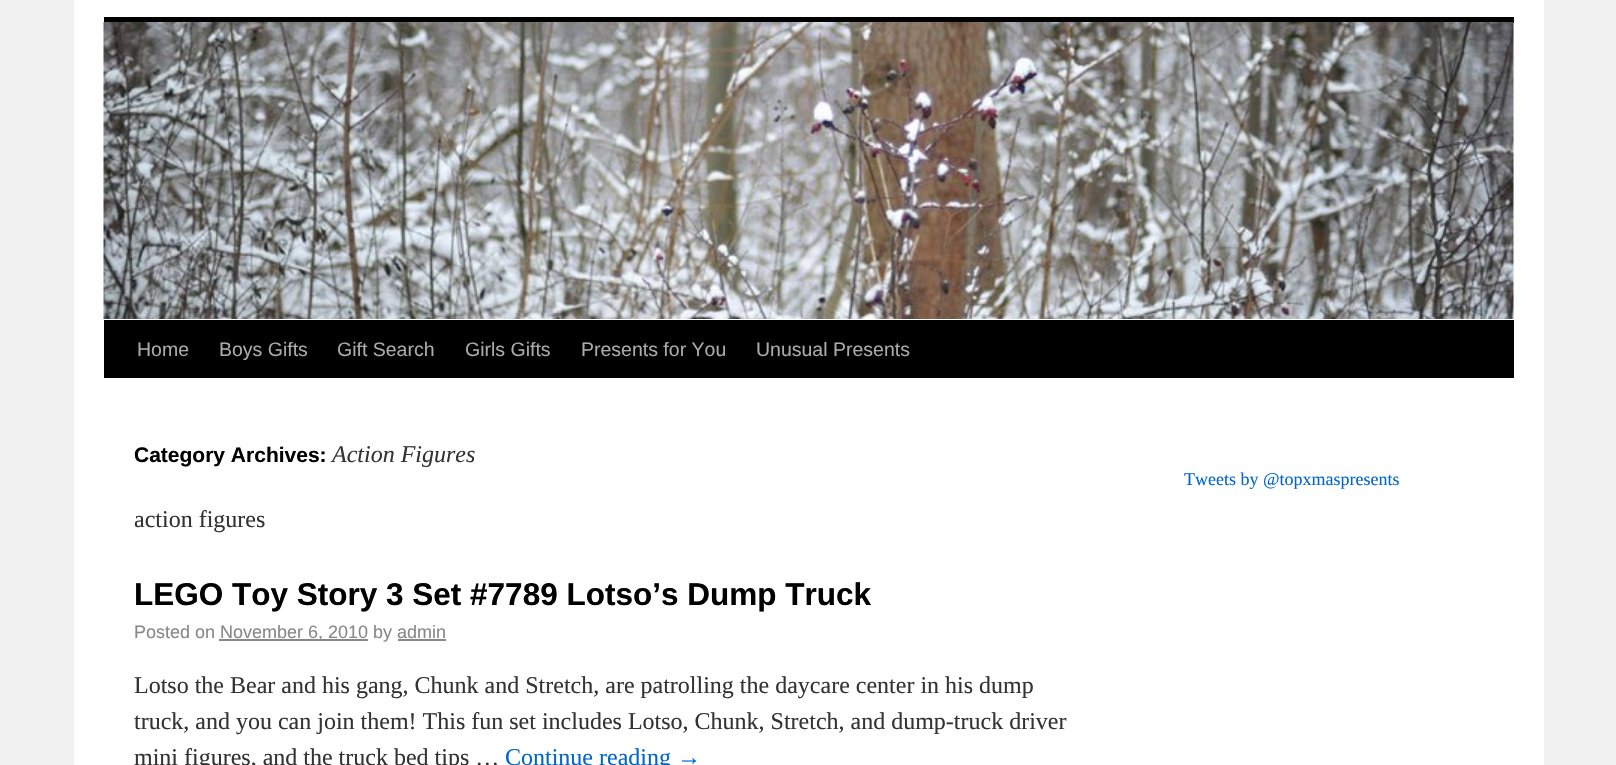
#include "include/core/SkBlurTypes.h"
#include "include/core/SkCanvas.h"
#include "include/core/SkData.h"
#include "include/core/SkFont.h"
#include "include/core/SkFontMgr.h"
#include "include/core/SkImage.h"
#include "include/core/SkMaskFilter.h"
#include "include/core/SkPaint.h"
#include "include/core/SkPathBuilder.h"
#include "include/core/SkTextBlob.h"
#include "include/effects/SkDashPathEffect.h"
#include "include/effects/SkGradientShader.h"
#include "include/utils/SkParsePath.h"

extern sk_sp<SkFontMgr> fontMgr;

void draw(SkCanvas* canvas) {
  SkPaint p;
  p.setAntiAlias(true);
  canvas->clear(SkColorSetRGB(241, 241, 241));
  p.setColor(SK_ColorWHITE);
  canvas->drawRect(SkRect::MakeLTRB(74, 0, 1544, 765), p);
  p.setColor(SK_ColorBLACK);
  canvas->drawRect(SkRect::MakeLTRB(104, 17, 1514, 23), p);
  canvas->drawRect(SkRect::MakeLTRB(104, 320, 1514, 378), p);
  canvas->drawImageRect(SkImages::DeferredFromEncodedData(SkData::MakeFromFileName("images/1.png")), SkRect::MakeLTRB(103, 22, 1514, 319), SkSamplingOptions());
  p.setColor(SkColorSetRGB(136, 136, 136));
  canvas->drawRect(SkRect::MakeLTRB(219, 639, 368, 641), p);
  canvas->drawRect(SkRect::MakeLTRB(398, 639, 446, 641), p);
  SkFont font1(fontMgr->matchFamilyStyle("Liberation Sans", SkFontStyle::Normal()), 19.5f);
  font1.setSubpixel(true);
  p.setColor(SkColorSetRGB(170, 170, 170));
  canvas->drawString("Home", 137, 356, font1, p);
  canvas->drawString("Boys Gifts", 219, 356, font1, p);
  canvas->drawString("Gift Search", 337, 356, font1, p);
  canvas->drawString("Girls Gifts", 465, 356, font1, p);
  canvas->drawString("Presents for You", 581, 356, font1, p);
  canvas->drawString("Unusual Presents", 756, 356, font1, p);
  SkFont font2(fontMgr->matchFamilyStyle("Liberation Sans", SkFontStyle::Bold()), 21);
  font2.setSubpixel(true);
  p.setColor(SK_ColorBLACK);
  canvas->drawString("Category Archives:", 134, 462, font2, p);
  SkFont font3(fontMgr->matchFamilyStyle("Liberation Serif", SkFontStyle::Italic()), 24);
  font3.setSubpixel(true);
  p.setColor(SkColorSetRGB(51, 51, 51));
  canvas->drawString("Action Figures", 332, 462, font3, p);
  SkFont font4(fontMgr->matchFamilyStyle("Liberation Serif", SkFontStyle::Normal()), 24);
  font4.setSubpixel(true);
  canvas->drawString("action figures", 134, 527, font4, p);
  SkFont font5(fontMgr->matchFamilyStyle("Liberation Sans", SkFontStyle::Bold()), 31.5f);
  font5.setSubpixel(true);
  p.setColor(SK_ColorBLACK);
  canvas->drawString("LEGO Toy Story 3 Set #7789 Lotso’s Dump Truck", 134, 605, font5, p);
  SkFont font6(fontMgr->matchFamilyStyle("Liberation Sans", SkFontStyle::Normal()), 18);
  font6.setSubpixel(true);
  p.setColor(SkColorSetRGB(136, 136, 136));
  canvas->drawString("Posted on", 134, 638, font6, p);
  canvas->drawString("November 6, 2010 by admin", 220, 638, font6, p);
  p.setColor(SkColorSetRGB(51, 51, 51));
  canvas->drawString("Lotso the Bear and his gang, Chunk and Stretch, are patrolling the daycare center in his dump", 134, 693, font4, p);
  canvas->drawString("truck, and you can join them! This fun set includes Lotso, Chunk, Stretch, and dump-truck driver", 134, 729, font4, p);
  canvas->drawString("mini figures, and the truck bed tips …", 134, 765, font4, p);
  p.setColor(SkColorSetRGB(0, 102, 204));
  canvas->drawString("Continue reading →", 505, 765, font4, p);
  canvas->save();
  canvas->clipRect(SkRect::MakeLTRB(1184, 438, 1514, 519));
  SkFont font7(fontMgr->matchFamilyStyle("Liberation Serif", SkFontStyle::Normal()), 18);
  font7.setSubpixel(true);
  canvas->drawString("Tweets by @topxmaspresents", 1184, 485, font7, p);
  canvas->restore();
}
